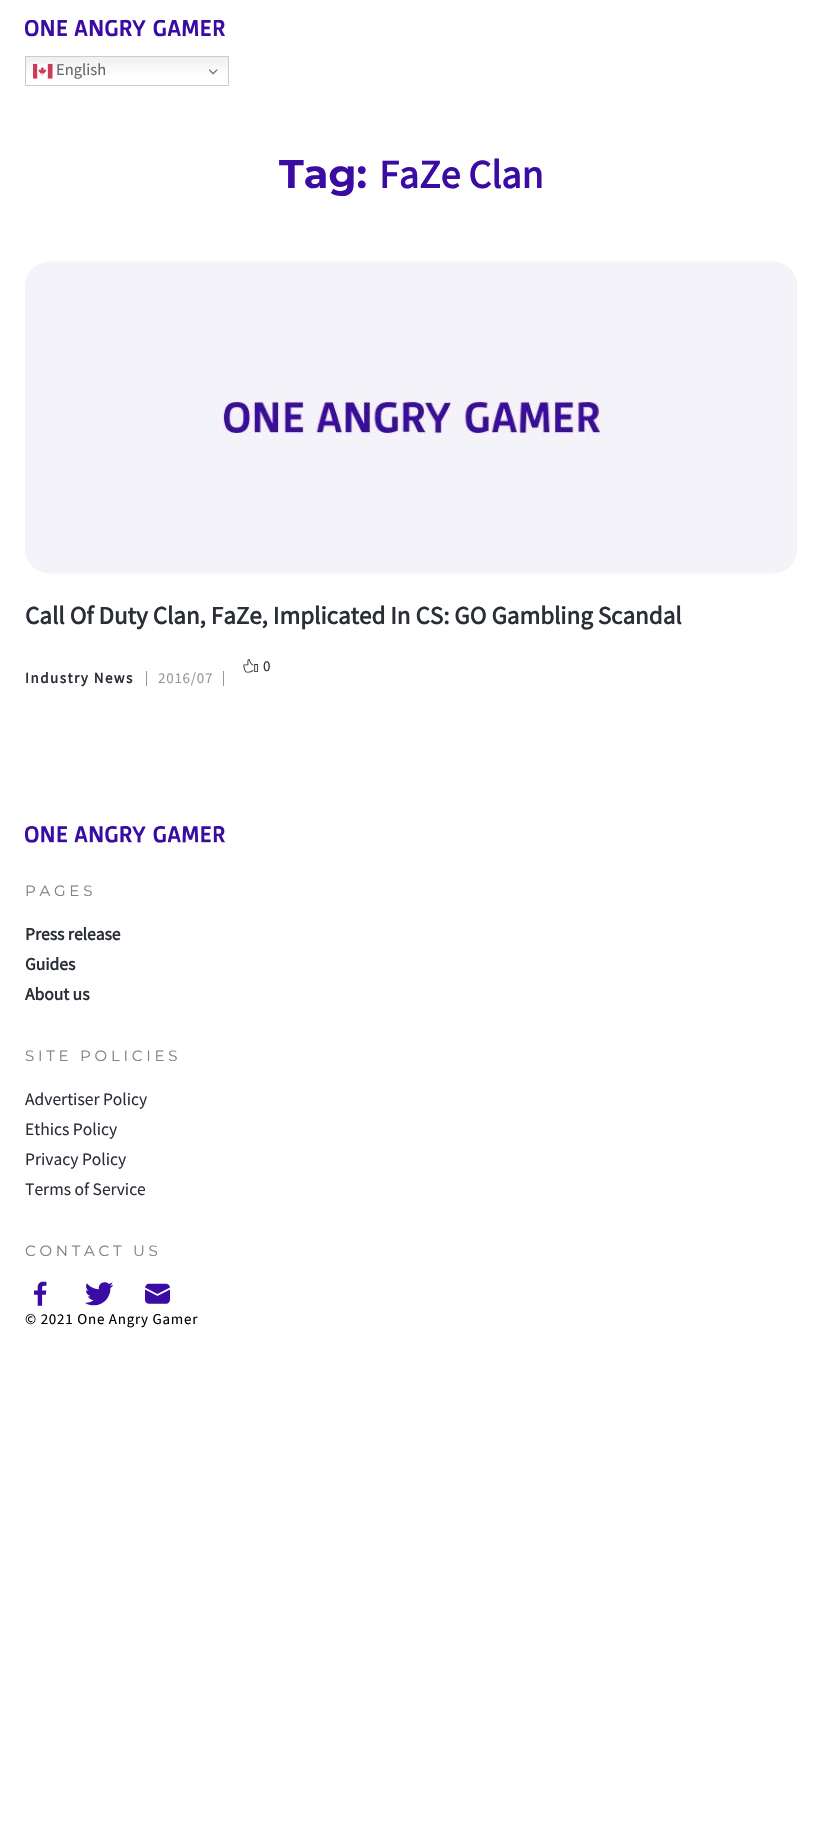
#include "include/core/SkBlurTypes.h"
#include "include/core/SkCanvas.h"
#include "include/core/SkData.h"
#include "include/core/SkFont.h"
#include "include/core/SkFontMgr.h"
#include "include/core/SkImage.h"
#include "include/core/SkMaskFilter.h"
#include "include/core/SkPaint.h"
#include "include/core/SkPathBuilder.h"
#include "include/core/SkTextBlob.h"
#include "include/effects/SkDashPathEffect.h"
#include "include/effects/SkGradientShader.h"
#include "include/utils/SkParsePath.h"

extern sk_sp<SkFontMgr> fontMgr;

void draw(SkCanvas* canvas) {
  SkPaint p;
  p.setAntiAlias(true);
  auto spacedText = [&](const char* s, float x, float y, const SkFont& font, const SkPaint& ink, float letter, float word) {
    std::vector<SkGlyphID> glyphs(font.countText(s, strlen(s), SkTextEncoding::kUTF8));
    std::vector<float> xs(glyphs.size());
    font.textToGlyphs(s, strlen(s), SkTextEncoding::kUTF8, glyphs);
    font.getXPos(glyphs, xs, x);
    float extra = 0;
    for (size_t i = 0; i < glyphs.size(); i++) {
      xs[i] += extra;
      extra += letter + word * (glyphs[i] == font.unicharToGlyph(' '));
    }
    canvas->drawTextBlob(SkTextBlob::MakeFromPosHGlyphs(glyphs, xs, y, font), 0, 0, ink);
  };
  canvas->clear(SK_ColorWHITE);
  canvas->drawImageRect(SkImages::DeferredFromEncodedData(SkData::MakeFromFileName("images/1.png")), SkRect::MakeLTRB(25, 19, 225, 37), SkSamplingOptions());
  {
    const SkColor colors[] = {SkColorSetRGB(239, 239, 239), SK_ColorWHITE};
    const float stops[] = {0, 0.7f};
    const SkPoint ends[] = {{127, 56}, {127, 86}};
    p.setShader(SkGradientShader::MakeLinear(ends, colors, stops, 2, SkTileMode::kClamp));
    p.setAlpha(255);
  }
  canvas->drawRect(SkRect::MakeLTRB(26, 57, 228, 74), p);
  p.setStyle(SkPaint::kStroke_Style);
  p.setStrokeWidth(1);
  p.setShader(nullptr);
  p.setColor(SkColorSetRGB(204, 204, 204));
  canvas->drawRect(SkRect::MakeLTRB(25.5f, 56.5f, 228.5f, 85.5f), p);
  canvas->drawImageRect(SkImages::DeferredFromEncodedData(SkData::MakeFromFileName("images/2.png")), SkRect::MakeLTRB(33, 63, 53, 79), SkSamplingOptions());
  canvas->drawImageRect(SkImages::DeferredFromEncodedData(SkData::MakeFromFileName("images/3.png")), SkRect::MakeLTRB(209, 69, 218, 75), SkSamplingOptions());
  canvas->drawImageRect(SkImages::DeferredFromEncodedData(SkData::MakeFromFileName("images/4.png")), SkRect::MakeLTRB(25, 261, 797, 574), SkSamplingOptions());
  canvas->drawImageRect(SkImages::DeferredFromEncodedData(SkData::MakeFromFileName("images/5.png")), SkRect::MakeLTRB(243, 659, 258, 673), SkSamplingOptions());
  p.setStyle(SkPaint::kFill_Style);
  p.setColor(SkColorSetRGB(149, 151, 155));
  canvas->drawRect(SkRect::MakeLTRB(223, 671, 224, 686), p);
  canvas->drawRect(SkRect::MakeLTRB(146, 671, 147, 686), p);
  canvas->drawImageRect(SkImages::DeferredFromEncodedData(SkData::MakeFromFileName("images/6.png")), SkRect::MakeLTRB(25, 826, 225, 843), SkSamplingOptions());
  canvas->drawImageRect(SkImages::DeferredFromEncodedData(SkData::MakeFromFileName("images/7.png")), SkRect::MakeLTRB(34, 1281, 47, 1306), SkSamplingOptions());
  canvas->drawImageRect(SkImages::DeferredFromEncodedData(SkData::MakeFromFileName("images/8.png")), SkRect::MakeLTRB(85, 1282, 113, 1306), SkSamplingOptions());
  canvas->drawImageRect(SkImages::DeferredFromEncodedData(SkData::MakeFromFileName("images/9.png")), SkRect::MakeLTRB(145, 1283, 170, 1304), SkSamplingOptions());
  SkFont font1(fontMgr->matchFamilyStyle("Source Sans Pro", SkFontStyle::Normal()), 16.5f);
  font1.setSubpixel(true);
  p.setColor(SkColorSetRGB(102, 102, 102));
  canvas->drawString("English", 56, 75, font1, p);
  SkFont font2(fontMgr->matchFamilyStyle("Montserrat", SkFontStyle::Bold()), 40);
  font2.setSubpixel(true);
  p.setColor(SkColorSetRGB(58, 12, 163));
  canvas->drawString("Tag:", 279, 188, font2, p);
  SkFont font3(fontMgr->matchFamilyStyle("Source Sans Pro", SkFontStyle::Bold()), 40);
  font3.setSubpixel(true);
  canvas->drawString("FaZe Clan", 379, 188, font3, p);
  SkFont font4(fontMgr->matchFamilyStyle("Source Sans Pro", SkFontStyle::Bold()), 25);
  font4.setSubpixel(true);
  p.setColor(SkColorSetRGB(42, 46, 55));
  canvas->drawString("Call Of Duty Clan, FaZe, Implicated In CS: GO Gambling Scandal", 25, 624, font4, p);
  SkFont font5(fontMgr->matchFamilyStyle("Source Sans Pro", SkFontStyle::Normal()), 15);
  font5.setSubpixel(true);
  canvas->drawString("0", 263, 671, font5, p);
  SkFont font6(fontMgr->matchFamilyStyle("Source Sans Pro", SkFontStyle::Bold()), 15);
  font6.setSubpixel(true);
  spacedText("Industry News", 25, 683, font6, p, 1.5f, 0);
  p.setColor(SkColorSetRGB(149, 151, 155));
  spacedText("2016/07", 158, 683, font5, p, 0.75f, 0);
  SkFont font7(fontMgr->matchFamilyStyle("Montserrat", SkFontStyle::Normal()), 15);
  font7.setSubpixel(true);
  p.setColor(SkColorSetRGB(127, 130, 135));
  spacedText("PAGES", 25, 896, font7, p, 3.75f, 0);
  SkFont font8(fontMgr->matchFamilyStyle("Source Sans Pro", SkFontStyle::Bold()), 17.5f);
  font8.setSubpixel(true);
  p.setColor(SkColorSetRGB(42, 46, 55));
  canvas->drawString("Press release", 25, 940, font8, p);
  canvas->drawString("Guides", 25, 970, font8, p);
  canvas->drawString("About us", 25, 1000, font8, p);
  p.setColor(SkColorSetRGB(127, 130, 135));
  spacedText("SITE POLICIES", 25, 1061, font7, p, 3.75f, 0);
  SkFont font9(fontMgr->matchFamilyStyle("Source Sans Pro", SkFontStyle::Normal()), 17.5f);
  font9.setSubpixel(true);
  p.setColor(SkColorSetRGB(42, 46, 55));
  canvas->drawString("Advertiser Policy", 25, 1105, font9, p);
  canvas->drawString("Ethics Policy", 25, 1135, font9, p);
  canvas->drawString("Privacy Policy", 25, 1165, font9, p);
  canvas->drawString("Terms of Service", 25, 1195, font9, p);
  p.setColor(SkColorSetRGB(127, 130, 135));
  spacedText("CONTACT US", 25, 1256, font7, p, 3.75f, 0);
  p.setColor(SK_ColorBLACK);
  spacedText("© 2021 One Angry Gamer", 25, 1324, font5, p, 0.75f, 0);
}
